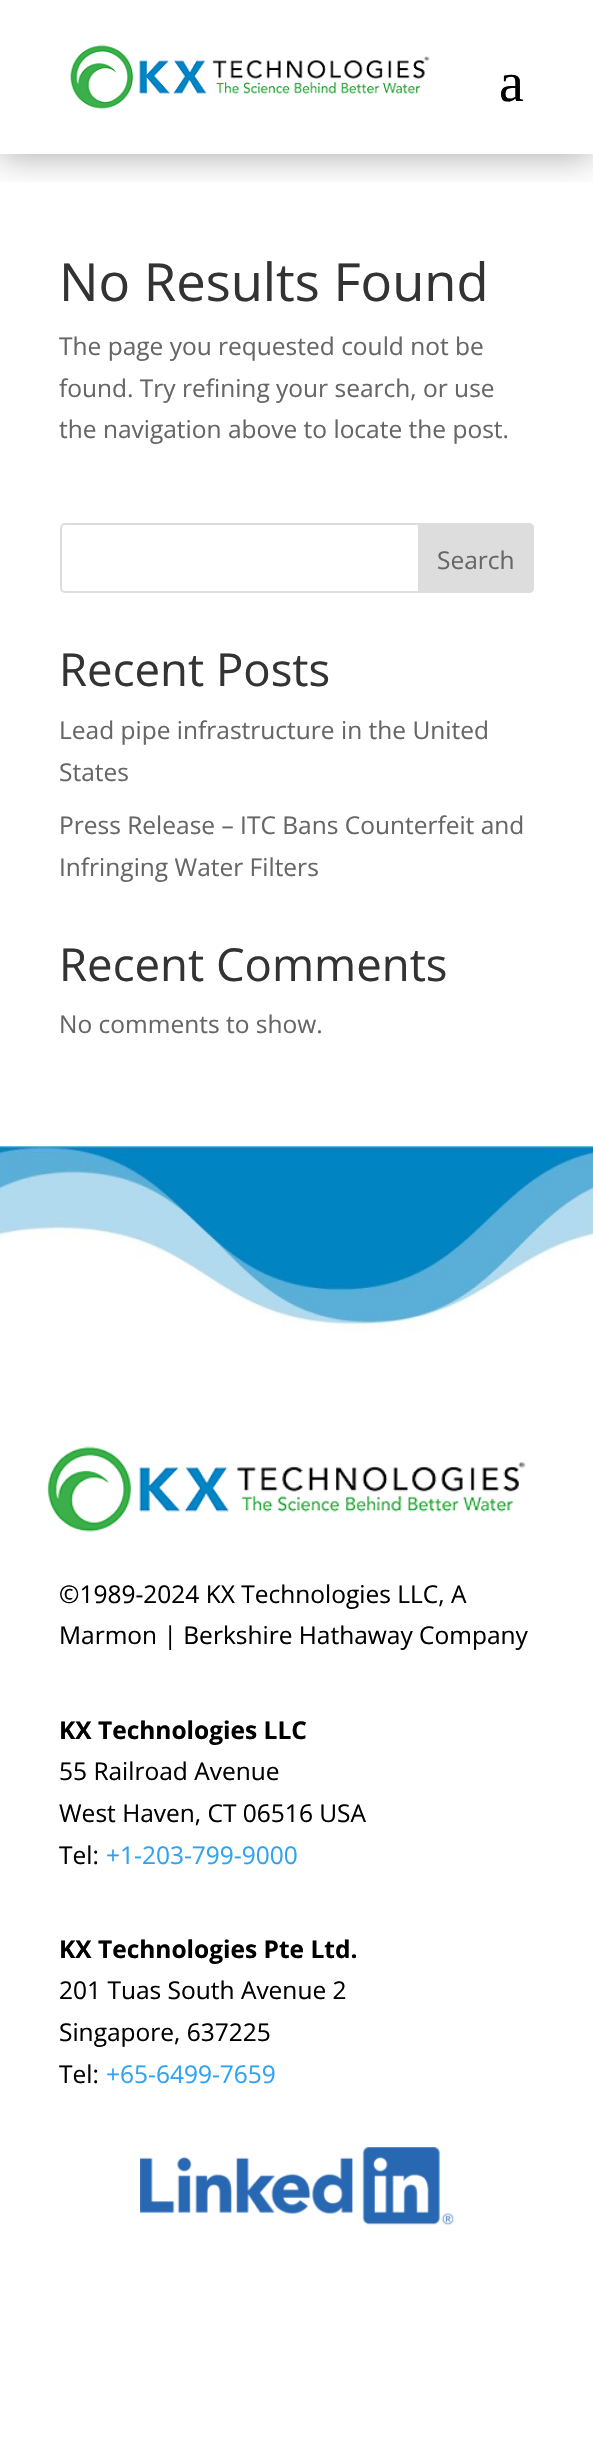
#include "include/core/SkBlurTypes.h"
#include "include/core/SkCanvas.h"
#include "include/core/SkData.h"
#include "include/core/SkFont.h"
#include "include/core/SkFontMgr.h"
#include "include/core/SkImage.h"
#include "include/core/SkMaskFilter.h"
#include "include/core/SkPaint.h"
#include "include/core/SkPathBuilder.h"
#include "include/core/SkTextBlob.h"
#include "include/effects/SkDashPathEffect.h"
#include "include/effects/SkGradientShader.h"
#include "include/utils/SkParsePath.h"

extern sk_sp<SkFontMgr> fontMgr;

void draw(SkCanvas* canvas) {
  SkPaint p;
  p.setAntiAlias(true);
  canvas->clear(SK_ColorWHITE);
  canvas->save();
  canvas->clipRect(SkRect::MakeLTRB(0, 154, 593, 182));
  p.setColor(SkColorSetARGB(77, 0, 0, 0));
  p.setMaskFilter(SkMaskFilter::MakeBlur(kNormal_SkBlurStyle, 16));
  canvas->drawRect(SkRect::MakeLTRB(0, 4, 593, 158), p);
  p.setMaskFilter(nullptr);
  canvas->restore();
  canvas->drawImageRect(SkImages::DeferredFromEncodedData(SkData::MakeFromFileName("images/1.png")), SkRect::MakeLTRB(70, 44, 430, 110), SkSamplingOptions());
  p.setStyle(SkPaint::kStroke_Style);
  p.setStrokeWidth(2);
  p.setColor(SkColorSetRGB(221, 221, 221));
  canvas->drawRoundRect(SkRect::MakeLTRB(61, 524, 533, 592), 4, 4, p);
  p.setStyle(SkPaint::kFill_Style);
  canvas->drawPath(SkPathBuilder().moveTo(419, 524).lineTo(529, 524).cubicTo(531, 524, 533, 526, 533, 528).lineTo(533, 588).cubicTo(533, 590, 531, 592, 529, 592).lineTo(419, 592).close().detach(), p);
  p.setStyle(SkPaint::kStroke_Style);
  canvas->drawPath(SkPathBuilder().moveTo(419, 524).lineTo(529, 524).cubicTo(531, 524, 533, 526, 533, 528).lineTo(533, 588).cubicTo(533, 590, 531, 592, 529, 592).lineTo(419, 592).close().detach(), p);
  canvas->drawImageRect(SkImages::DeferredFromEncodedData(SkData::MakeFromFileName("images/2.png")), SkRect::MakeLTRB(0, 1146, 593, 1332), SkSamplingOptions());
  canvas->drawImageRect(SkImages::DeferredFromEncodedData(SkData::MakeFromFileName("images/3.png")), SkRect::MakeLTRB(47, 1445, 526, 1533), SkSamplingOptions());
  canvas->drawImageRect(SkImages::DeferredFromEncodedData(SkData::MakeFromFileName("images/4.png")), SkRect::MakeLTRB(140, 2147, 454, 2225), SkSamplingOptions());
  SkFont font1(fontMgr->matchFamilyStyle("Liberation Serif", SkFontStyle::Normal()), 56);
  font1.setSubpixel(true);
  p.setStyle(SkPaint::kFill_Style);
  p.setColor(SK_ColorBLACK);
  canvas->drawString("a", 499, 101, font1, p);
  SkFont font2(fontMgr->matchFamilyStyle("Open Sans", SkFontStyle::Normal()), 52.5f);
  font2.setSubpixel(true);
  p.setColor(SkColorSetRGB(51, 51, 51));
  canvas->drawString("No Results Found", 59, 301, font2, p);
  SkFont font3(fontMgr->matchFamilyStyle("Open Sans", SkFontStyle::Normal()), 24.5f);
  font3.setSubpixel(true);
  p.setColor(SkColorSetRGB(102, 102, 102));
  canvas->drawString("The page you requested could not be", 59, 355, font3, p);
  canvas->drawString("found. Try refining your search, or use", 59, 397, font3, p);
  canvas->drawString("the navigation above to locate the post.", 59, 438, font3, p);
  canvas->drawString("Search", 437, 569, font3, p);
  SkFont font4(fontMgr->matchFamilyStyle("Open Sans", SkFontStyle::Normal()), 45.5f);
  font4.setSubpixel(true);
  p.setColor(SkColorSetRGB(51, 51, 51));
  canvas->drawString("Recent Posts", 59, 686, font4, p);
  p.setColor(SkColorSetRGB(102, 102, 102));
  canvas->drawString("Lead pipe infrastructure in the United", 59, 739, font3, p);
  canvas->drawString("States", 59, 781, font3, p);
  canvas->drawString("Press Release – ITC Bans Counterfeit and", 59, 834, font3, p);
  canvas->drawString("Infringing Water Filters", 59, 876, font3, p);
  p.setColor(SkColorSetRGB(51, 51, 51));
  canvas->drawString("Recent Comments", 59, 981, font4, p);
  p.setColor(SkColorSetRGB(102, 102, 102));
  canvas->drawString("No comments to show.", 59, 1033, font3, p);
  p.setColor(SK_ColorBLACK);
  canvas->drawString("©1989-2024 KX Technologies LLC, A", 59, 1603, font3, p);
  canvas->drawString("Marmon | Berkshire Hathaway Company", 59, 1644, font3, p);
  SkFont font5(fontMgr->matchFamilyStyle("Open Sans", SkFontStyle::Bold()), 24.5f);
  font5.setSubpixel(true);
  canvas->drawString("KX Technologies LLC", 59, 1739, font5, p);
  canvas->drawString("55 Railroad Avenue", 59, 1780, font3, p);
  canvas->drawString("West Haven, CT 06516 USA", 59, 1822, font3, p);
  canvas->drawString("Tel:", 59, 1864, font3, p);
  p.setColor(SkColorSetRGB(46, 163, 242));
  canvas->drawString("+1-203-799-9000", 106, 1864, font3, p);
  p.setColor(SK_ColorBLACK);
  canvas->drawString("KX Technologies Pte Ltd.", 59, 1958, font5, p);
  canvas->drawString("201 Tuas South Avenue 2", 59, 1999, font3, p);
  canvas->drawString("Singapore, 637225", 59, 2041, font3, p);
  canvas->drawString("Tel:", 59, 2083, font3, p);
  p.setColor(SkColorSetRGB(46, 163, 242));
  canvas->drawString("+65-6499-7659", 106, 2083, font3, p);
}
